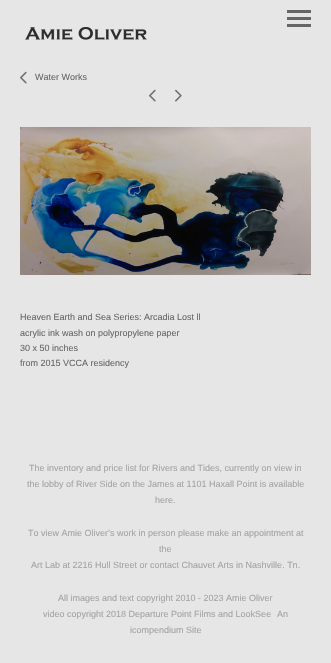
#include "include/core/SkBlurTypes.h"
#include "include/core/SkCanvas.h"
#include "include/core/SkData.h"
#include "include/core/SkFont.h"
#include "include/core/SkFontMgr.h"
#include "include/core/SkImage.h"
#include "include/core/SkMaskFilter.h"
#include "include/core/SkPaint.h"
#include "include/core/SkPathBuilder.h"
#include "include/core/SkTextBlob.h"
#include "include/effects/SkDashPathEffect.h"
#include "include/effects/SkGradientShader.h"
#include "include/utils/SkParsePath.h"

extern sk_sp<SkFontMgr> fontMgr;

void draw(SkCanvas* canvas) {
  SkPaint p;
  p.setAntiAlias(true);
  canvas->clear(SkColorSetRGB(230, 230, 230));
  p.setColor(SkColorSetRGB(102, 102, 102));
  canvas->drawRect(SkRect::MakeLTRB(287, 10, 311, 13), p);
  canvas->drawRect(SkRect::MakeLTRB(287, 17, 311, 20), p);
  canvas->drawRect(SkRect::MakeLTRB(287, 24, 311, 27), p);
  canvas->drawImageRect(SkImages::DeferredFromEncodedData(SkData::MakeFromFileName("images/1.png")), SkRect::MakeLTRB(25, 27, 147, 40), SkSamplingOptions());
  canvas->drawImageRect(SkImages::DeferredFromEncodedData(SkData::MakeFromFileName("images/2.png")), SkRect::MakeLTRB(20, 71, 27, 84), SkSamplingOptions());
  canvas->drawImageRect(SkImages::DeferredFromEncodedData(SkData::MakeFromFileName("images/2.png")), SkRect::MakeLTRB(149, 89, 156, 102), SkSamplingOptions());
  canvas->drawImageRect(SkImages::DeferredFromEncodedData(SkData::MakeFromFileName("images/3.png")), SkRect::MakeLTRB(175, 89, 182, 102), SkSamplingOptions());
  canvas->drawImageRect(SkImages::DeferredFromEncodedData(SkData::MakeFromFileName("images/4.png")), SkRect::MakeLTRB(20, 127, 311, 275), SkSamplingOptions());
  SkFont font1(fontMgr->matchFamilyStyle("Liberation Sans", SkFontStyle::Normal()), 9);
  font1.setSubpixel(true);
  canvas->drawString("Water Works", 35, 80, font1, p);
  canvas->drawString("Heaven Earth and Sea Series: Arcadia Lost ll", 20, 320, font1, p);
  canvas->drawString("acrylic ink wash on polypropylene paper", 20, 336, font1, p);
  canvas->drawString("30 x 50 inches", 20, 351, font1, p);
  canvas->drawString("from 2015 VCCA residency", 20, 366, font1, p);
  p.setColor(SkColorSetRGB(164, 164, 164));
  canvas->drawString("The inventory and price list for Rivers and Tides, currently on view in", 29, 471, font1, p);
  canvas->drawString("the lobby of River Side on the James at 1101 Haxall Point is available", 27, 487, font1, p);
  canvas->drawString("here.", 155, 503, font1, p);
  canvas->drawString("To view Amie Oliver’s work in person please make an appointment at", 28, 536, font1, p);
  canvas->drawString("the", 159, 552, font1, p);
  canvas->drawString("Art Lab at 2216 Hull Street or contact Chauvet Arts in Nashville. Tn.", 31, 568, font1, p);
  canvas->drawString("All images and text copyright 2010 - 2023 Amie Oliver", 58, 601, font1, p);
  canvas->drawString("video copyright 2018 Departure Point Films and LookSee", 43, 617, font1, p);
  canvas->drawString("An", 277, 617, font1, p);
  canvas->drawString("icompendium Site", 130, 633, font1, p);
}
